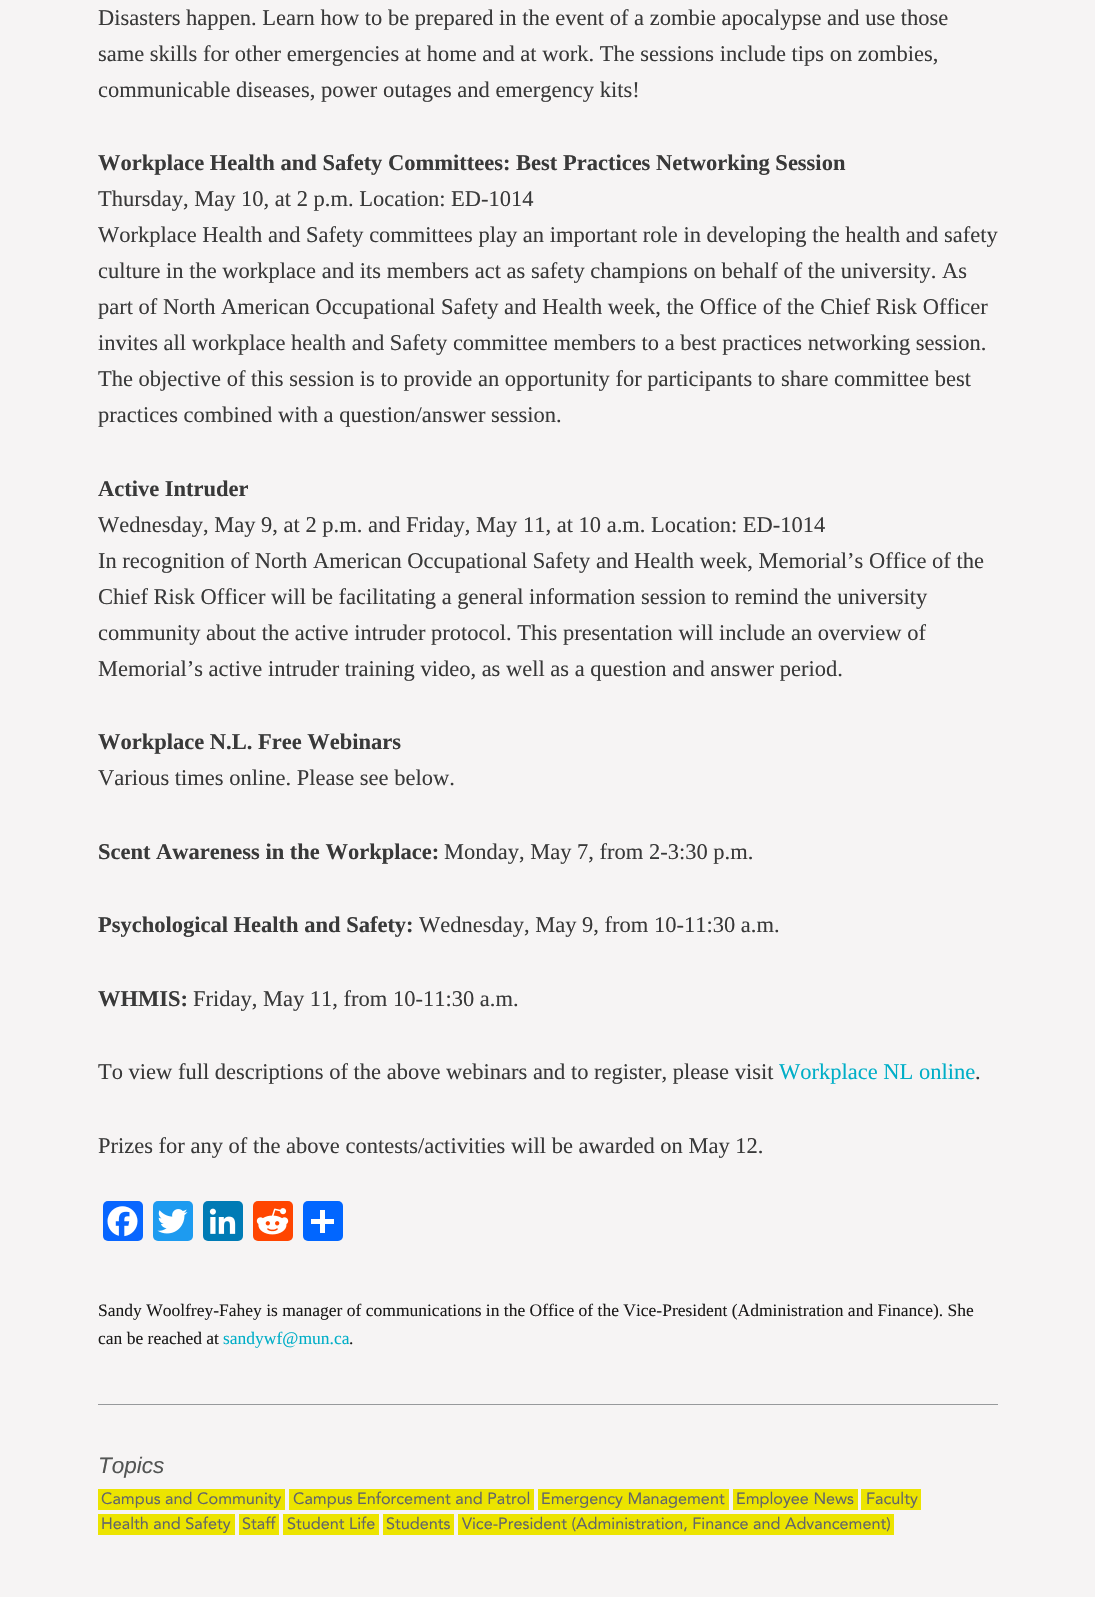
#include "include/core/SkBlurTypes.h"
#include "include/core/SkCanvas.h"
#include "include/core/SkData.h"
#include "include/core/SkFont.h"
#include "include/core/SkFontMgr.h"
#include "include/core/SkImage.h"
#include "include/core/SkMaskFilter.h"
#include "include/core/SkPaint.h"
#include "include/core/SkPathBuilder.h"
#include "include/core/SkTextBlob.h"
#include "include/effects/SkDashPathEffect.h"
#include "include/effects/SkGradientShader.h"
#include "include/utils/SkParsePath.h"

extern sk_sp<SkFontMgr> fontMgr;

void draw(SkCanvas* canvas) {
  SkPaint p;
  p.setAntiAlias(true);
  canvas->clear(SkColorSetRGB(246, 244, 244));
  p.setColor(SkColorSetRGB(8, 102, 255));
  canvas->drawRoundRect(SkRect::MakeLTRB(103, 1201, 143, 1241), 5, 5, p);
  canvas->drawImageRect(SkImages::DeferredFromEncodedData(SkData::MakeFromFileName("images/1.png")), SkRect::MakeLTRB(107, 1206, 138, 1237), SkSamplingOptions());
  p.setColor(SkColorSetRGB(29, 155, 240));
  canvas->drawRoundRect(SkRect::MakeLTRB(153, 1201, 193, 1241), 5, 5, p);
  canvas->drawImageRect(SkImages::DeferredFromEncodedData(SkData::MakeFromFileName("images/2.png")), SkRect::MakeLTRB(157, 1209, 188, 1234), SkSamplingOptions());
  p.setColor(SkColorSetRGB(0, 123, 181));
  canvas->drawRoundRect(SkRect::MakeLTRB(203, 1201, 243, 1241), 5, 5, p);
  canvas->drawImageRect(SkImages::DeferredFromEncodedData(SkData::MakeFromFileName("images/3.png")), SkRect::MakeLTRB(209, 1208, 236, 1234), SkSamplingOptions());
  p.setColor(SkColorSetRGB(255, 69, 0));
  canvas->drawRoundRect(SkRect::MakeLTRB(253, 1201, 293, 1241), 5, 5, p);
  canvas->drawImageRect(SkImages::DeferredFromEncodedData(SkData::MakeFromFileName("images/4.png")), SkRect::MakeLTRB(256, 1208, 289, 1235), SkSamplingOptions());
  p.setColor(SkColorSetRGB(1, 102, 255));
  canvas->drawRoundRect(SkRect::MakeLTRB(303, 1201, 343, 1241), 5, 5, p);
  p.setColor(SK_ColorWHITE);
  canvas->drawRect(SkRect::MakeLTRB(320, 1210, 325, 1233), p);
  canvas->drawRect(SkRect::MakeLTRB(311, 1219, 334, 1224), p);
  p.setColor(SkColorSetRGB(151, 153, 155));
  canvas->drawRect(SkRect::MakeLTRB(98, 1404, 998, 1405), p);
  p.setColor(SkColorSetRGB(236, 228, 0));
  canvas->drawRect(SkRect::MakeLTRB(98, 1489, 285, 1510), p);
  canvas->drawRect(SkRect::MakeLTRB(289, 1489, 534, 1510), p);
  canvas->drawRect(SkRect::MakeLTRB(538, 1489, 729, 1510), p);
  canvas->drawRect(SkRect::MakeLTRB(733, 1489, 858, 1510), p);
  canvas->drawRect(SkRect::MakeLTRB(861, 1489, 921, 1510), p);
  canvas->drawRect(SkRect::MakeLTRB(98, 1514, 235, 1535), p);
  canvas->drawRect(SkRect::MakeLTRB(239, 1514, 279, 1535), p);
  canvas->drawRect(SkRect::MakeLTRB(283, 1514, 379, 1535), p);
  canvas->drawRect(SkRect::MakeLTRB(383, 1514, 454, 1535), p);
  canvas->drawRect(SkRect::MakeLTRB(458, 1514, 894, 1535), p);
  SkFont font1(fontMgr->matchFamilyStyle("Liberation Serif", SkFontStyle::Normal()), 22.5f);
  font1.setSubpixel(true);
  p.setColor(SkColorSetRGB(57, 57, 57));
  canvas->drawString("Disasters happen. Learn how to be prepared in the event of a zombie apocalypse and use those", 98, 25, font1, p);
  canvas->drawString("same skills for other emergencies at home and at work. The sessions include tips on zombies,", 98, 61, font1, p);
  canvas->drawString("communicable diseases, power outages and emergency kits!", 98, 97, font1, p);
  SkFont font2(fontMgr->matchFamilyStyle("Liberation Serif", SkFontStyle::Bold()), 22.5f);
  font2.setSubpixel(true);
  canvas->drawString("Workplace Health and Safety Committees: Best Practices Networking Session", 98, 170, font2, p);
  canvas->drawString("Thursday, May 10, at 2 p.m. Location: ED-1014", 98, 206, font1, p);
  canvas->drawString("Workplace Health and Safety committees play an important role in developing the health and safety", 98, 242, font1, p);
  canvas->drawString("culture in the workplace and its members act as safety champions on behalf of the university. As", 98, 278, font1, p);
  canvas->drawString("part of North American Occupational Safety and Health week, the Office of the Chief Risk Officer", 98, 314, font1, p);
  canvas->drawString("invites all workplace health and Safety committee members to a best practices networking session.", 98, 350, font1, p);
  canvas->drawString("The objective of this session is to provide an opportunity for participants to share committee best", 98, 386, font1, p);
  canvas->drawString("practices combined with a question/answer session.", 98, 422, font1, p);
  canvas->drawString("Active Intruder", 98, 496, font2, p);
  canvas->drawString("Wednesday, May 9, at 2 p.m. and Friday, May 11, at 10 a.m. Location: ED-1014", 98, 532, font1, p);
  canvas->drawString("In recognition of North American Occupational Safety and Health week, Memorial’s Office of the", 98, 568, font1, p);
  canvas->drawString("Chief Risk Officer will be facilitating a general information session to remind the university", 98, 604, font1, p);
  canvas->drawString("community about the active intruder protocol. This presentation will include an overview of", 98, 640, font1, p);
  canvas->drawString("Memorial’s active intruder training video, as well as a question and answer period.", 98, 676, font1, p);
  canvas->drawString("Workplace N.L. Free Webinars", 98, 749, font2, p);
  canvas->drawString("Various times online. Please see below.", 98, 785, font1, p);
  canvas->drawString("Scent Awareness in the Workplace:", 98, 859, font2, p);
  canvas->drawString("Monday, May 7, from 2-3:30 p.m.", 444, 859, font1, p);
  canvas->drawString("Psychological Health and Safety:", 98, 932, font2, p);
  canvas->drawString("Wednesday, May 9, from 10-11:30 a.m.", 419, 932, font1, p);
  canvas->drawString("WHMIS:", 98, 1006, font2, p);
  canvas->drawString("Friday, May 11, from 10-11:30 a.m.", 193, 1006, font1, p);
  canvas->drawString("To view full descriptions of the above webinars and to register, please visit", 98, 1079, font1, p);
  p.setColor(SkColorSetRGB(0, 174, 199));
  canvas->drawString("Workplace NL online", 779, 1079, font1, p);
  p.setColor(SkColorSetRGB(57, 57, 57));
  canvas->drawString(".", 975, 1079, font1, p);
  canvas->drawString("Prizes for any of the above contests/activities will be awarded on May 12.", 98, 1153, font1, p);
  SkFont font3(fontMgr->matchFamilyStyle("Liberation Serif", SkFontStyle::Normal()), 17.5f);
  font3.setSubpixel(true);
  p.setColor(SkColorSetRGB(28, 27, 26));
  canvas->drawString("Sandy Woolfrey-Fahey is manager of communications in the Office of the Vice-President (Administration and Finance). She", 98, 1316, font3, p);
  canvas->drawString("can be reached at", 98, 1344, font3, p);
  p.setColor(SkColorSetRGB(0, 174, 199));
  canvas->drawString("sandywf@mun.ca", 223, 1344, font3, p);
  p.setColor(SkColorSetRGB(28, 27, 26));
  canvas->drawString(".", 349, 1344, font3, p);
  SkFont font4(fontMgr->matchFamilyStyle("Liberation Sans", SkFontStyle::Italic()), 22.5f);
  font4.setSubpixel(true);
  p.setColor(SkColorSetRGB(83, 85, 84));
  canvas->drawString("Topics", 98, 1473, font4, p);
  SkFont font5(fontMgr->matchFamilyStyle("Avenir", SkFontStyle::Normal()), 16.25f);
  font5.setSubpixel(true);
  p.setColor(SkColorSetRGB(99, 102, 106));
  canvas->drawString("Campus and Community", 101, 1504, font5, p);
  canvas->drawString("Campus Enforcement and Patrol", 293, 1504, font5, p);
  canvas->drawString("Emergency Management", 541, 1504, font5, p);
  canvas->drawString("Employee News", 736, 1504, font5, p);
  canvas->drawString("Faculty", 866, 1504, font5, p);
  canvas->drawString("Health and Safety", 101, 1529, font5, p);
  canvas->drawString("Staff", 242, 1529, font5, p);
  canvas->drawString("Student Life", 287, 1529, font5, p);
  canvas->drawString("Students", 386, 1529, font5, p);
  canvas->drawString("Vice-President (Administration, Finance and Advancement)", 462, 1529, font5, p);
}
